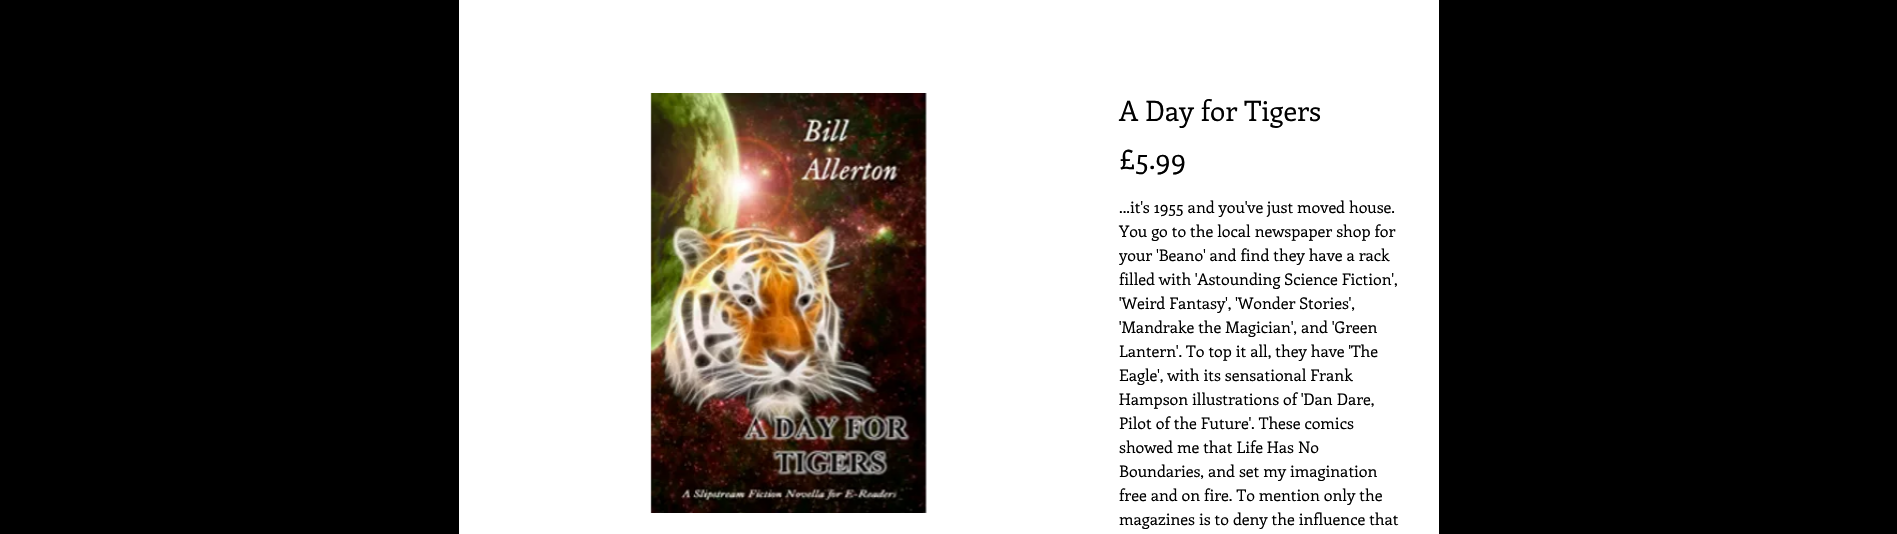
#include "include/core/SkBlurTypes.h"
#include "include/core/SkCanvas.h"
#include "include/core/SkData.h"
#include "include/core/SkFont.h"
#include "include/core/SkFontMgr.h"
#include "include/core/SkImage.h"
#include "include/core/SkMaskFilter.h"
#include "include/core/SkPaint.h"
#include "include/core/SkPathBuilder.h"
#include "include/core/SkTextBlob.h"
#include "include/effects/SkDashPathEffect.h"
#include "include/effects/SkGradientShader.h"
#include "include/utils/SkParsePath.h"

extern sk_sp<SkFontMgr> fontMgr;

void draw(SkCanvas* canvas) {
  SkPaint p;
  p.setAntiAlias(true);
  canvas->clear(SK_ColorBLACK);
  p.setColor(SK_ColorWHITE);
  canvas->drawRect(SkRect::MakeLTRB(459, 0, 1439, 534), p);
  canvas->drawImageRect(SkImages::DeferredFromEncodedData(SkData::MakeFromFileName("images/1.png")), SkRect::MakeLTRB(650, 93, 927, 513), SkSamplingOptions());
  SkFont font1(fontMgr->matchFamilyStyle("Enriqueta", SkFontStyle::Normal()), 28);
  font1.setSubpixel(true);
  p.setColor(SK_ColorBLACK);
  canvas->drawString("A Day for Tigers", 1119, 121, font1, p);
  canvas->drawString("£5.99", 1119, 169, font1, p);
  SkFont font2(fontMgr->matchFamilyStyle("Enriqueta", SkFontStyle::Normal()), 16);
  font2.setSubpixel(true);
  canvas->drawString("...it's 1955 and you've just moved house.", 1119, 213, font2, p);
  canvas->drawString("You go to the local newspaper shop for", 1119, 237, font2, p);
  canvas->save();
  canvas->clipRect(SkRect::MakeLTRB(1119, 195, 1399, 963));
  canvas->drawString("your 'Beano' and find they have a rack", 1119, 261, font2, p);
  canvas->restore();
  canvas->drawString("filled with 'Astounding Science Fiction',", 1119, 285, font2, p);
  canvas->drawString("'Weird Fantasy', 'Wonder Stories',", 1119, 309, font2, p);
  canvas->drawString("'Mandrake the Magician', and 'Green", 1119, 333, font2, p);
  canvas->drawString("Lantern'. To top it all, they have 'The", 1119, 357, font2, p);
  canvas->drawString("Eagle', with its sensational Frank", 1119, 381, font2, p);
  canvas->drawString("Hampson illustrations of 'Dan Dare,", 1119, 405, font2, p);
  canvas->drawString("Pilot of the Future'. These comics", 1119, 429, font2, p);
  canvas->drawString("showed me that Life Has No", 1119, 453, font2, p);
  canvas->drawString("Boundaries, and set my imagination", 1119, 477, font2, p);
  canvas->drawString("free and on fire. To mention only the", 1119, 501, font2, p);
  canvas->drawString("magazines is to deny the influence that", 1119, 525, font2, p);
}
